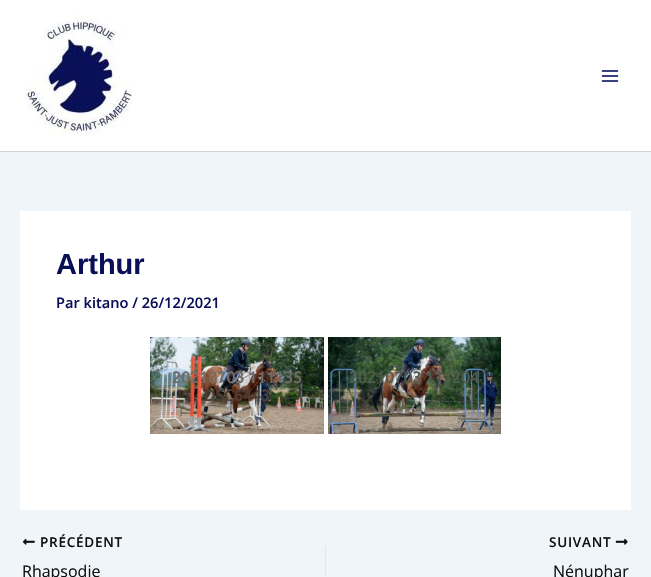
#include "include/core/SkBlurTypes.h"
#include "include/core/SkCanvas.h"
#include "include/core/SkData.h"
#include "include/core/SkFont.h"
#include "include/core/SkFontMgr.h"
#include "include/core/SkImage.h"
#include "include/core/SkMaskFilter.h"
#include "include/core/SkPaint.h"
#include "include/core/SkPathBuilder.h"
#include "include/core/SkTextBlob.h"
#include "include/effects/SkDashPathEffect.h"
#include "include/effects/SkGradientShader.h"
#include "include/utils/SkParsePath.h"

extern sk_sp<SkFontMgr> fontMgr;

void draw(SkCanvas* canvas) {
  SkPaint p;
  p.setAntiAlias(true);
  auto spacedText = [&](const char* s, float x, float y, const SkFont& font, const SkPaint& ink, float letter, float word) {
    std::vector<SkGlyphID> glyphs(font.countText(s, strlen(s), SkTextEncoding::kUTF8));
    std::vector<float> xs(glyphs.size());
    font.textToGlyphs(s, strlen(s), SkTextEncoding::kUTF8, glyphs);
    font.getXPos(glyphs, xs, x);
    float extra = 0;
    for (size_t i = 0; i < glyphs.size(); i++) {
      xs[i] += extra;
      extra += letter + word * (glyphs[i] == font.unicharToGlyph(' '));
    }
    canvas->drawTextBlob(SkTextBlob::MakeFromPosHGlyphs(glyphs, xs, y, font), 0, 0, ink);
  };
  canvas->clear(SkColorSetRGB(240, 245, 250));
  p.setColor(SK_ColorWHITE);
  canvas->drawRect(SkRect::MakeLTRB(0, 0, 651, 151), p);
  p.setColor(SkColorSetRGB(209, 213, 219));
  canvas->drawRect(SkRect::MakeLTRB(0, 151, 651, 152), p);
  canvas->drawImageRect(SkImages::DeferredFromEncodedData(SkData::MakeFromFileName("images/1.png")), SkRect::MakeLTRB(26, 15, 132, 135), SkSamplingOptions());
  canvas->drawImageRect(SkImages::DeferredFromEncodedData(SkData::MakeFromFileName("images/2.png")), SkRect::MakeLTRB(601, 70, 619, 82), SkSamplingOptions());
  p.setColor(SK_ColorWHITE);
  canvas->drawRect(SkRect::MakeLTRB(20, 211, 631, 510), p);
  canvas->drawImageRect(SkImages::DeferredFromEncodedData(SkData::MakeFromFileName("images/3.png")), SkRect::MakeLTRB(150, 337, 324, 434), SkSamplingOptions());
  canvas->drawImageRect(SkImages::DeferredFromEncodedData(SkData::MakeFromFileName("images/4.png")), SkRect::MakeLTRB(328, 337, 501, 434), SkSamplingOptions());
  canvas->drawImageRect(SkImages::DeferredFromEncodedData(SkData::MakeFromFileName("images/5.png")), SkRect::MakeLTRB(22, 538, 35, 545), SkSamplingOptions());
  p.setColor(SkColorSetRGB(225, 232, 237));
  canvas->drawRect(SkRect::MakeLTRB(325, 546, 326, 576), p);
  canvas->drawImageRect(SkImages::DeferredFromEncodedData(SkData::MakeFromFileName("images/6.png")), SkRect::MakeLTRB(615, 538, 628, 545), SkSamplingOptions());
  SkFont font1(fontMgr->matchFamilyStyle("Liberation Sans", SkFontStyle::Bold()), 29);
  font1.setSubpixel(true);
  p.setColor(SkColorSetRGB(9, 16, 88));
  canvas->drawString("Arthur", 56, 274, font1, p);
  SkFont font2(fontMgr->matchFamilyStyle("Open Sans", SkFontStyle(600, SkFontStyle::kNormal_Width, SkFontStyle::kUpright_Slant)), 14.6f);
  font2.setSubpixel(true);
  canvas->drawString("Par kitano / 26/12/2021", 56, 308, font2, p);
  SkFont font3(fontMgr->matchFamilyStyle("Ubuntu", SkFontStyle::Bold()), 16);
  font3.setSubpixel(true);
  p.setColor(SkColorSetRGB(113, 107, 101));
  canvas->drawString("20210703 111135", 172, 383, font3, p);
  p.setColor(SkColorSetRGB(76, 62, 54));
  canvas->drawString("DSC6443", 204, 401, font3, p);
  p.setColor(SkColorSetRGB(80, 91, 77));
  canvas->drawString("20210703 111204", 349, 383, font3, p);
  SkFont font4(fontMgr->matchFamilyStyle("Open Sans", SkFontStyle(600, SkFontStyle::kNormal_Width, SkFontStyle::kUpright_Slant)), 13.5f);
  font4.setSubpixel(true);
  p.setColor(SkColorSetRGB(17, 17, 17));
  spacedText("PRÉCÉDENT", 40, 547, font4, p, 0.75f, 0);
  SkFont font5(fontMgr->matchFamilyStyle("Open Sans", SkFontStyle::Normal()), 16);
  font5.setSubpixel(true);
  canvas->drawString("Rhapsodie", 22, 577, font5, p);
  spacedText("SUIVANT", 549, 547, font4, p, 0.75f, 0);
  canvas->drawString("Nénuphar", 553, 577, font5, p);
}
